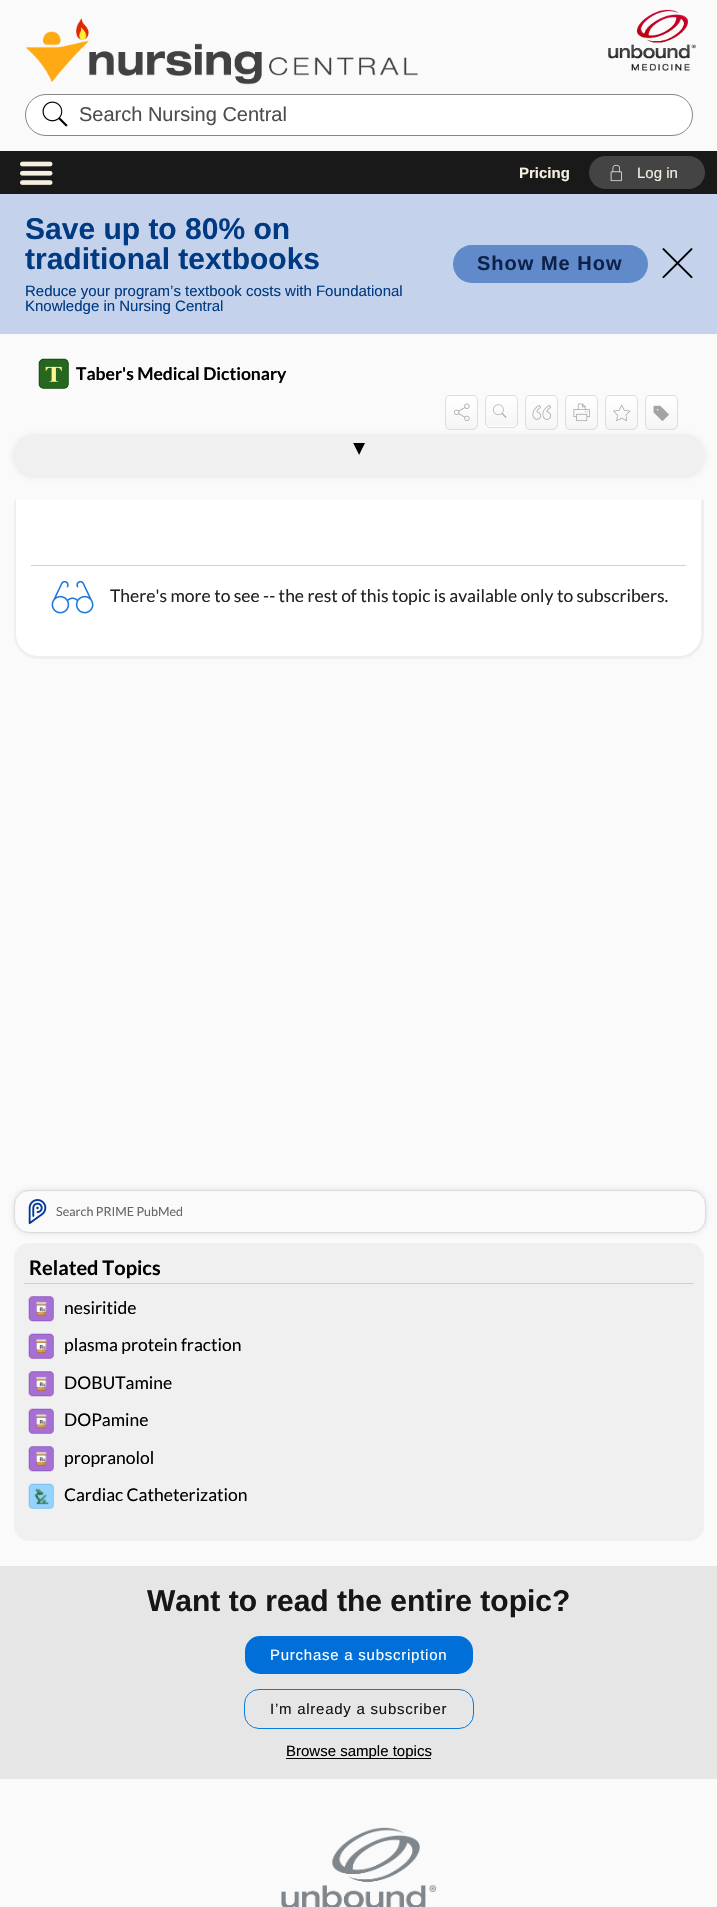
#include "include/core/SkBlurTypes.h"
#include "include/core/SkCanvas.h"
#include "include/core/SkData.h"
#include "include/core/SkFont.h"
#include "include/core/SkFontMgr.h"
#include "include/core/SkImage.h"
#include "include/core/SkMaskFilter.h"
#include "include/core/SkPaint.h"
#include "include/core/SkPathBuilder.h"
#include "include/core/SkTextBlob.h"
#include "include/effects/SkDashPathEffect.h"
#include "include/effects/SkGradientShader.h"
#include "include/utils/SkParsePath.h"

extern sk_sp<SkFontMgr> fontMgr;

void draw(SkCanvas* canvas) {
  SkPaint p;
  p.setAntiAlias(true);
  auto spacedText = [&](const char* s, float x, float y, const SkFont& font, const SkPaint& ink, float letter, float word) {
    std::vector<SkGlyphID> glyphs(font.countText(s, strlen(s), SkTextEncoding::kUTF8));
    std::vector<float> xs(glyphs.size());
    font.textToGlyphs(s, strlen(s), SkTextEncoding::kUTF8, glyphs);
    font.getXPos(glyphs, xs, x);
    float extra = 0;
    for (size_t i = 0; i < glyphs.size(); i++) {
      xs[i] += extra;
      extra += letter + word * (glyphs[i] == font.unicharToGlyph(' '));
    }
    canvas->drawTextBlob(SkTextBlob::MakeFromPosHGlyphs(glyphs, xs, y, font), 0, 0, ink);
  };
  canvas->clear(SkColorSetRGB(250, 250, 250));
  canvas->drawImageRect(SkImages::DeferredFromEncodedData(SkData::MakeFromFileName("images/1.png")), SkRect::MakeLTRB(25, 18, 418, 85), SkSamplingOptions());
  canvas->drawImageRect(SkImages::DeferredFromEncodedData(SkData::MakeFromFileName("images/2.png")), SkRect::MakeLTRB(608, 9, 696, 71), SkSamplingOptions());
  p.setColor(SK_ColorWHITE);
  canvas->drawRoundRect(SkRect::MakeLTRB(25.5f, 94.5f, 692.5f, 135.5f), 20.5f, 20.5f, p);
  p.setStyle(SkPaint::kStroke_Style);
  p.setStrokeWidth(1);
  p.setColor(SkColorSetRGB(135, 135, 135));
  canvas->drawRoundRect(SkRect::MakeLTRB(25.5f, 94.5f, 692.5f, 135.5f), 20.5f, 20.5f, p);
  canvas->drawImageRect(SkImages::DeferredFromEncodedData(SkData::MakeFromFileName("images/3.png")), SkRect::MakeLTRB(42, 101, 68, 127), SkSamplingOptions());
  p.setStyle(SkPaint::kFill_Style);
  p.setColor(SkColorSetRGB(25, 25, 25));
  canvas->drawRect(SkRect::MakeLTRB(0, 151, 717, 194), p);
  canvas->drawImageRect(SkImages::DeferredFromEncodedData(SkData::MakeFromFileName("images/4.png")), SkRect::MakeLTRB(20, 161, 53, 185), SkSamplingOptions());
  p.setColor(SkColorSetRGB(68, 68, 68));
  canvas->drawRoundRect(SkRect::MakeLTRB(589, 156, 705, 189), 16.5f, 16.5f, p);
  canvas->drawImageRect(SkImages::DeferredFromEncodedData(SkData::MakeFromFileName("images/5.png")), SkRect::MakeLTRB(610, 164, 622, 182), SkSamplingOptions());
  p.setColor(SkColorSetRGB(196, 210, 235));
  canvas->drawRect(SkRect::MakeLTRB(0, 194, 717, 334), p);
  p.setColor(SkColorSetRGB(97, 138, 202));
  canvas->drawRoundRect(SkRect::MakeLTRB(453, 245, 648, 283), 19, 19, p);
  canvas->drawImageRect(SkImages::DeferredFromEncodedData(SkData::MakeFromFileName("images/6.png")), SkRect::MakeLTRB(662, 248, 693, 279), SkSamplingOptions());
  canvas->drawImageRect(SkImages::DeferredFromEncodedData(SkData::MakeFromFileName("images/7.png")), SkRect::MakeLTRB(38, 358, 69, 389), SkSamplingOptions());
  canvas->save();
  canvas->clipPath(SkPathBuilder().moveTo(450, 395).lineTo(473, 395).cubicTo(476, 395, 478, 397, 478, 400).lineTo(478, 425).cubicTo(478, 428, 476, 430, 473, 430).lineTo(450, 430).cubicTo(447, 430, 445, 428, 445, 425).lineTo(445, 400).cubicTo(445, 397, 447, 395, 450, 395).close().detach(), true);
  {
    const SkColor colors[] = {SK_ColorWHITE, SkColorSetRGB(245, 245, 245)};
    const float stops[] = {0, 1};
    const SkPoint ends[] = {{461, 396}, {461, 429}};
    p.setShader(SkGradientShader::MakeLinear(ends, colors, stops, 2, SkTileMode::kClamp));
    p.setAlpha(255);
  }
  canvas->drawRect(SkRect::MakeLTRB(445, 396, 478, 429), p);
  canvas->restore();
  p.setStyle(SkPaint::kStroke_Style);
  p.setShader(nullptr);
  p.setColor(SkColorSetRGB(219, 221, 223));
  canvas->drawRoundRect(SkRect::MakeLTRB(445.5f, 395.5f, 477.5f, 429.5f), 4.5f, 4.5f, p);
  canvas->drawImageRect(SkImages::DeferredFromEncodedData(SkData::MakeFromFileName("images/8.png")), SkRect::MakeLTRB(454, 403, 470, 421), SkSamplingOptions());
  canvas->save();
  canvas->clipPath(SkPathBuilder().moveTo(490, 395).lineTo(513, 395).cubicTo(516, 395, 518, 397, 518, 400).lineTo(518, 423).cubicTo(518, 426, 516, 428, 513, 428).lineTo(490, 428).cubicTo(487, 428, 485, 426, 485, 423).lineTo(485, 400).cubicTo(485, 397, 487, 395, 490, 395).close().detach(), true);
  p.setStyle(SkPaint::kFill_Style);
  {
    const SkColor colors[] = {SK_ColorWHITE, SkColorSetRGB(245, 245, 245)};
    const float stops[] = {0, 1};
    const SkPoint ends[] = {{501, 396}, {501, 426}};
    p.setShader(SkGradientShader::MakeLinear(ends, colors, stops, 2, SkTileMode::kClamp));
    p.setAlpha(255);
  }
  canvas->drawRect(SkRect::MakeLTRB(485, 396, 518, 426), p);
  {
    const SkColor colors[] = {SK_ColorWHITE, SkColorSetRGB(245, 245, 245)};
    const float stops[] = {0, 1};
    const SkPoint ends[] = {{501, 426}, {501, 456}};
    p.setShader(SkGradientShader::MakeLinear(ends, colors, stops, 2, SkTileMode::kClamp));
    p.setAlpha(255);
  }
  canvas->drawRect(SkRect::MakeLTRB(485, 426, 518, 428), p);
  canvas->restore();
  p.setStyle(SkPaint::kStroke_Style);
  p.setShader(nullptr);
  p.setColor(SkColorSetRGB(219, 221, 223));
  canvas->drawRoundRect(SkRect::MakeLTRB(485.5f, 395.5f, 517.5f, 427.5f), 4.5f, 4.5f, p);
  canvas->drawImageRect(SkImages::DeferredFromEncodedData(SkData::MakeFromFileName("images/9.png")), SkRect::MakeLTRB(493, 404, 507, 418), SkSamplingOptions());
  canvas->save();
  canvas->clipPath(SkPathBuilder().moveTo(530, 395).lineTo(553, 395).cubicTo(556, 395, 558, 397, 558, 400).lineTo(558, 425).cubicTo(558, 428, 556, 430, 553, 430).lineTo(530, 430).cubicTo(527, 430, 525, 428, 525, 425).lineTo(525, 400).cubicTo(525, 397, 527, 395, 530, 395).close().detach(), true);
  p.setStyle(SkPaint::kFill_Style);
  {
    const SkColor colors[] = {SK_ColorWHITE, SkColorSetRGB(245, 245, 245)};
    const float stops[] = {0, 1};
    const SkPoint ends[] = {{541, 396}, {541, 429}};
    p.setShader(SkGradientShader::MakeLinear(ends, colors, stops, 2, SkTileMode::kClamp));
    p.setAlpha(255);
  }
  canvas->drawRect(SkRect::MakeLTRB(525, 396, 558, 429), p);
  canvas->restore();
  p.setStyle(SkPaint::kStroke_Style);
  p.setShader(nullptr);
  p.setColor(SkColorSetRGB(219, 221, 223));
  canvas->drawRoundRect(SkRect::MakeLTRB(525.5f, 395.5f, 557.5f, 429.5f), 4.5f, 4.5f, p);
  canvas->drawImageRect(SkImages::DeferredFromEncodedData(SkData::MakeFromFileName("images/10.png")), SkRect::MakeLTRB(532, 405, 551, 420), SkSamplingOptions());
  canvas->save();
  canvas->clipPath(SkPathBuilder().moveTo(570, 395).lineTo(593, 395).cubicTo(596, 395, 598, 397, 598, 400).lineTo(598, 425).cubicTo(598, 428, 596, 430, 593, 430).lineTo(570, 430).cubicTo(567, 430, 565, 428, 565, 425).lineTo(565, 400).cubicTo(565, 397, 567, 395, 570, 395).close().detach(), true);
  p.setStyle(SkPaint::kFill_Style);
  {
    const SkColor colors[] = {SK_ColorWHITE, SkColorSetRGB(245, 245, 245)};
    const float stops[] = {0, 1};
    const SkPoint ends[] = {{581, 396}, {581, 429}};
    p.setShader(SkGradientShader::MakeLinear(ends, colors, stops, 2, SkTileMode::kClamp));
    p.setAlpha(255);
  }
  canvas->drawRect(SkRect::MakeLTRB(565, 396, 598, 429), p);
  canvas->restore();
  p.setStyle(SkPaint::kStroke_Style);
  p.setShader(nullptr);
  p.setColor(SkColorSetRGB(219, 221, 223));
  canvas->drawRoundRect(SkRect::MakeLTRB(565.5f, 395.5f, 597.5f, 429.5f), 4.5f, 4.5f, p);
  canvas->drawImageRect(SkImages::DeferredFromEncodedData(SkData::MakeFromFileName("images/11.png")), SkRect::MakeLTRB(573, 403, 590, 422), SkSamplingOptions());
  canvas->save();
  canvas->clipPath(SkPathBuilder().moveTo(610, 395).lineTo(633, 395).cubicTo(636, 395, 638, 397, 638, 400).lineTo(638, 425).cubicTo(638, 428, 636, 430, 633, 430).lineTo(610, 430).cubicTo(607, 430, 605, 428, 605, 425).lineTo(605, 400).cubicTo(605, 397, 607, 395, 610, 395).close().detach(), true);
  p.setStyle(SkPaint::kFill_Style);
  {
    const SkColor colors[] = {SK_ColorWHITE, SkColorSetRGB(245, 245, 245)};
    const float stops[] = {0, 1};
    const SkPoint ends[] = {{621, 396}, {621, 429}};
    p.setShader(SkGradientShader::MakeLinear(ends, colors, stops, 2, SkTileMode::kClamp));
    p.setAlpha(255);
  }
  canvas->drawRect(SkRect::MakeLTRB(605, 396, 638, 429), p);
  canvas->restore();
  p.setStyle(SkPaint::kStroke_Style);
  p.setShader(nullptr);
  p.setColor(SkColorSetRGB(219, 221, 223));
  canvas->drawRoundRect(SkRect::MakeLTRB(605.5f, 395.5f, 637.5f, 429.5f), 4.5f, 4.5f, p);
  canvas->drawImageRect(SkImages::DeferredFromEncodedData(SkData::MakeFromFileName("images/12.png")), SkRect::MakeLTRB(613, 404, 631, 421), SkSamplingOptions());
  canvas->save();
  canvas->clipPath(SkPathBuilder().moveTo(650, 395).lineTo(673, 395).cubicTo(676, 395, 678, 397, 678, 400).lineTo(678, 425).cubicTo(678, 428, 676, 430, 673, 430).lineTo(650, 430).cubicTo(647, 430, 645, 428, 645, 425).lineTo(645, 400).cubicTo(645, 397, 647, 395, 650, 395).close().detach(), true);
  p.setStyle(SkPaint::kFill_Style);
  {
    const SkColor colors[] = {SK_ColorWHITE, SkColorSetRGB(245, 245, 245)};
    const float stops[] = {0, 1};
    const SkPoint ends[] = {{661, 396}, {661, 429}};
    p.setShader(SkGradientShader::MakeLinear(ends, colors, stops, 2, SkTileMode::kClamp));
    p.setAlpha(255);
  }
  canvas->drawRect(SkRect::MakeLTRB(645, 396, 678, 429), p);
  canvas->restore();
  p.setStyle(SkPaint::kStroke_Style);
  p.setShader(nullptr);
  p.setColor(SkColorSetRGB(219, 221, 223));
  canvas->drawRoundRect(SkRect::MakeLTRB(645.5f, 395.5f, 677.5f, 429.5f), 4.5f, 4.5f, p);
  canvas->drawImageRect(SkImages::DeferredFromEncodedData(SkData::MakeFromFileName("images/13.png")), SkRect::MakeLTRB(653, 405, 669, 421), SkSamplingOptions());
  p.setStyle(SkPaint::kFill_Style);
  p.setColor(SK_ColorWHITE);
  canvas->drawPath(SkPathBuilder().moveTo(14, 500).lineTo(704, 500).lineTo(704, 634).cubicTo(704, 648, 693, 659, 679, 659).lineTo(39, 659).cubicTo(25, 659, 14, 648, 14, 634).close().detach(), p);
  p.setColor(SkColorSetRGB(239, 239, 239));
  canvas->drawPath(SkPathBuilder(SkPathFillType::kEvenOdd).moveTo(14, 500).lineTo(704, 500).lineTo(704, 634).cubicTo(704, 648, 693, 659, 679, 659).lineTo(39, 659).cubicTo(25, 659, 14, 648, 14, 634).close().moveTo(16, 500).lineTo(701, 500).lineTo(701, 634).cubicTo(701, 646, 691, 656, 679, 656).lineTo(39, 656).cubicTo(26, 656, 16, 646, 16, 634).close().detach(), p);
  p.setColor(SkColorSetRGB(211, 211, 211));
  canvas->drawRect(SkRect::MakeLTRB(31, 565, 686, 566), p);
  canvas->drawImageRect(SkImages::DeferredFromEncodedData(SkData::MakeFromFileName("images/14.png")), SkRect::MakeLTRB(51, 580, 94, 614), SkSamplingOptions());
  p.setColor(SkColorSetRGB(224, 224, 224));
  p.setMaskFilter(SkMaskFilter::MakeBlur(kNormal_SkBlurStyle, 3));
  canvas->drawRoundRect(SkRect::MakeLTRB(14, 436, 704, 476), 20, 20, p);
  p.setMaskFilter(nullptr);
  p.setColor(SkColorSetRGB(240, 240, 240));
  canvas->drawRoundRect(SkRect::MakeLTRB(14, 436, 704, 476), 20, 20, p);
  p.setColor(SkColorSetRGB(221, 221, 221));
  p.setMaskFilter(SkMaskFilter::MakeBlur(kNormal_SkBlurStyle, 2.5f));
  canvas->drawRoundRect(SkRect::MakeLTRB(14, 1190, 706, 1233), 15, 15, p);
  p.setMaskFilter(nullptr);
  p.setColor(SkColorSetRGB(250, 250, 250));
  canvas->drawRoundRect(SkRect::MakeLTRB(14.5f, 1190.5f, 705.5f, 1232.5f), 14.5f, 14.5f, p);
  p.setStyle(SkPaint::kStroke_Style);
  p.setColor(SkColorSetRGB(217, 219, 224));
  canvas->drawRoundRect(SkRect::MakeLTRB(14.5f, 1190.5f, 705.5f, 1232.5f), 14.5f, 14.5f, p);
  canvas->drawImageRect(SkImages::DeferredFromEncodedData(SkData::MakeFromFileName("images/15.png")), SkRect::MakeLTRB(28, 1199, 47, 1225), SkSamplingOptions());
  p.setStyle(SkPaint::kFill_Style);
  p.setColor(SkColorSetRGB(240, 240, 240));
  canvas->drawRoundRect(SkRect::MakeLTRB(14, 1243, 704, 1541), 15, 15, p);
  p.setColor(SkColorSetRGB(204, 207, 211));
  canvas->drawRect(SkRect::MakeLTRB(24, 1283, 694, 1284), p);
  canvas->drawImageRect(SkImages::DeferredFromEncodedData(SkData::MakeFromFileName("images/16.png")), SkRect::MakeLTRB(28, 1296, 54, 1322), SkSamplingOptions());
  canvas->drawImageRect(SkImages::DeferredFromEncodedData(SkData::MakeFromFileName("images/17.png")), SkRect::MakeLTRB(28, 1333, 54, 1359), SkSamplingOptions());
  canvas->drawImageRect(SkImages::DeferredFromEncodedData(SkData::MakeFromFileName("images/16.png")), SkRect::MakeLTRB(28, 1371, 54, 1397), SkSamplingOptions());
  canvas->drawImageRect(SkImages::DeferredFromEncodedData(SkData::MakeFromFileName("images/17.png")), SkRect::MakeLTRB(28, 1408, 54, 1434), SkSamplingOptions());
  canvas->drawImageRect(SkImages::DeferredFromEncodedData(SkData::MakeFromFileName("images/16.png")), SkRect::MakeLTRB(28, 1446, 54, 1472), SkSamplingOptions());
  canvas->drawImageRect(SkImages::DeferredFromEncodedData(SkData::MakeFromFileName("images/18.png")), SkRect::MakeLTRB(28, 1483, 54, 1509), SkSamplingOptions());
  p.setColor(SkColorSetRGB(230, 230, 230));
  canvas->drawRect(SkRect::MakeLTRB(0, 1566, 717, 1779), p);
  p.setColor(SkColorSetRGB(0, 111, 216));
  canvas->drawRoundRect(SkRect::MakeLTRB(245, 1636, 473, 1674), 15, 15, p);
  p.setStyle(SkPaint::kStroke_Style);
  p.setColor(SkColorSetRGB(9, 123, 217));
  canvas->drawRoundRect(SkRect::MakeLTRB(244.5f, 1689.5f, 473.5f, 1728.5f), 14.5f, 14.5f, p);
  p.setStyle(SkPaint::kFill_Style);
  p.setColor(SK_ColorBLACK);
  canvas->drawRect(SkRect::MakeLTRB(286, 1758, 431, 1759), p);
  canvas->drawImageRect(SkImages::DeferredFromEncodedData(SkData::MakeFromFileName("images/19.png")), SkRect::MakeLTRB(281, 1827, 437, 1907), SkSamplingOptions());
  SkFont font1(fontMgr->matchFamilyStyle("Liberation Sans", SkFontStyle::Normal()), 20);
  font1.setSubpixel(true);
  p.setColor(SkColorSetRGB(77, 77, 77));
  canvas->drawString("Search Nursing Central", 79, 121, font1, p);
  SkFont font2(fontMgr->matchFamilyStyle("Liberation Sans", SkFontStyle::Bold()), 15);
  font2.setSubpixel(true);
  p.setColor(SkColorSetRGB(245, 239, 224));
  canvas->drawString("Pricing", 519, 178, font2, p);
  SkFont font3(fontMgr->matchFamilyStyle("Liberation Sans", SkFontStyle::Normal()), 15);
  font3.setSubpixel(true);
  canvas->drawString("Log in", 637, 178, font3, p);
  SkFont font4(fontMgr->matchFamilyStyle("Liberation Sans", SkFontStyle::Bold()), 30);
  font4.setSubpixel(true);
  p.setColor(SkColorSetRGB(0, 58, 130));
  canvas->drawString("Save up to 80% on", 25, 239, font4, p);
  canvas->drawString("traditional textbooks", 25, 269, font4, p);
  canvas->drawString("Reduce your program’s textbook costs with Foundational", 25, 296, font3, p);
  canvas->drawString("Knowledge in Nursing Central", 25, 311, font3, p);
  SkFont font5(fontMgr->matchFamilyStyle("Liberation Sans", SkFontStyle::Bold()), 20);
  font5.setSubpixel(true);
  p.setColor(SkColorSetRGB(14, 33, 72));
  spacedText("Show Me How", 477, 270, font5, p, 1, 0);
  SkFont font6(fontMgr->matchFamilyStyle("Lato", SkFontStyle::Bold()), 17.5f);
  font6.setSubpixel(true);
  p.setColor(SK_ColorBLACK);
  canvas->drawString("Taber's Medical Dictionary", 76, 380, font6, p);
  SkFont font7(fontMgr->matchFamilyStyle("Lato", SkFontStyle::Normal()), 17.5f);
  font7.setSubpixel(true);
  p.setColor(SkColorSetRGB(34, 34, 34));
  canvas->drawString("There's more to see -- the rest of this topic is available only to subscribers.", 110, 602, font7, p);
  SkFont font8(fontMgr->matchFamilyStyle("Liberation Serif", SkFontStyle::Normal()), 20);
  font8.setSubpixel(true);
  p.setColor(SK_ColorBLACK);
  canvas->save();
  canvas->rotate(180, 369, 443);
  canvas->drawString("▲", 369, 443, font8, p);
  canvas->restore();
  SkFont font9(fontMgr->matchFamilyStyle("Lato", SkFontStyle::Normal()), 12.5f);
  font9.setSubpixel(true);
  p.setColor(SkColorSetRGB(102, 102, 102));
  canvas->drawString("Search PRIME PubMed", 56, 1216, font9, p);
  SkFont font10(fontMgr->matchFamilyStyle("Lato", SkFontStyle::Bold()), 20);
  font10.setSubpixel(true);
  p.setColor(SK_ColorBLACK);
  canvas->drawString("Related Topics", 29, 1275, font10, p);
  canvas->drawString("nesiritide", 64, 1314, font7, p);
  canvas->drawString("plasma protein fraction", 64, 1351, font7, p);
  canvas->drawString("DOBUTamine", 64, 1389, font7, p);
  canvas->drawString("DOPamine", 64, 1426, font7, p);
  canvas->drawString("propranolol", 64, 1464, font7, p);
  canvas->drawString("Cardiac Catheterization", 64, 1501, font7, p);
  p.setColor(SkColorSetRGB(22, 22, 22));
  canvas->drawString("Want to read the entire topic?", 147, 1611, font4, p);
  p.setColor(SK_ColorWHITE);
  spacedText("Purchase a subscription", 270, 1660, font3, p, 0.75f, 0);
  p.setColor(SkColorSetRGB(22, 22, 22));
  spacedText("I’m already a subscriber", 270, 1714, font3, p, 0.75f, 0);
  p.setColor(SK_ColorBLACK);
  canvas->drawString("Browse sample topics", 286, 1756, font3, p);
}
